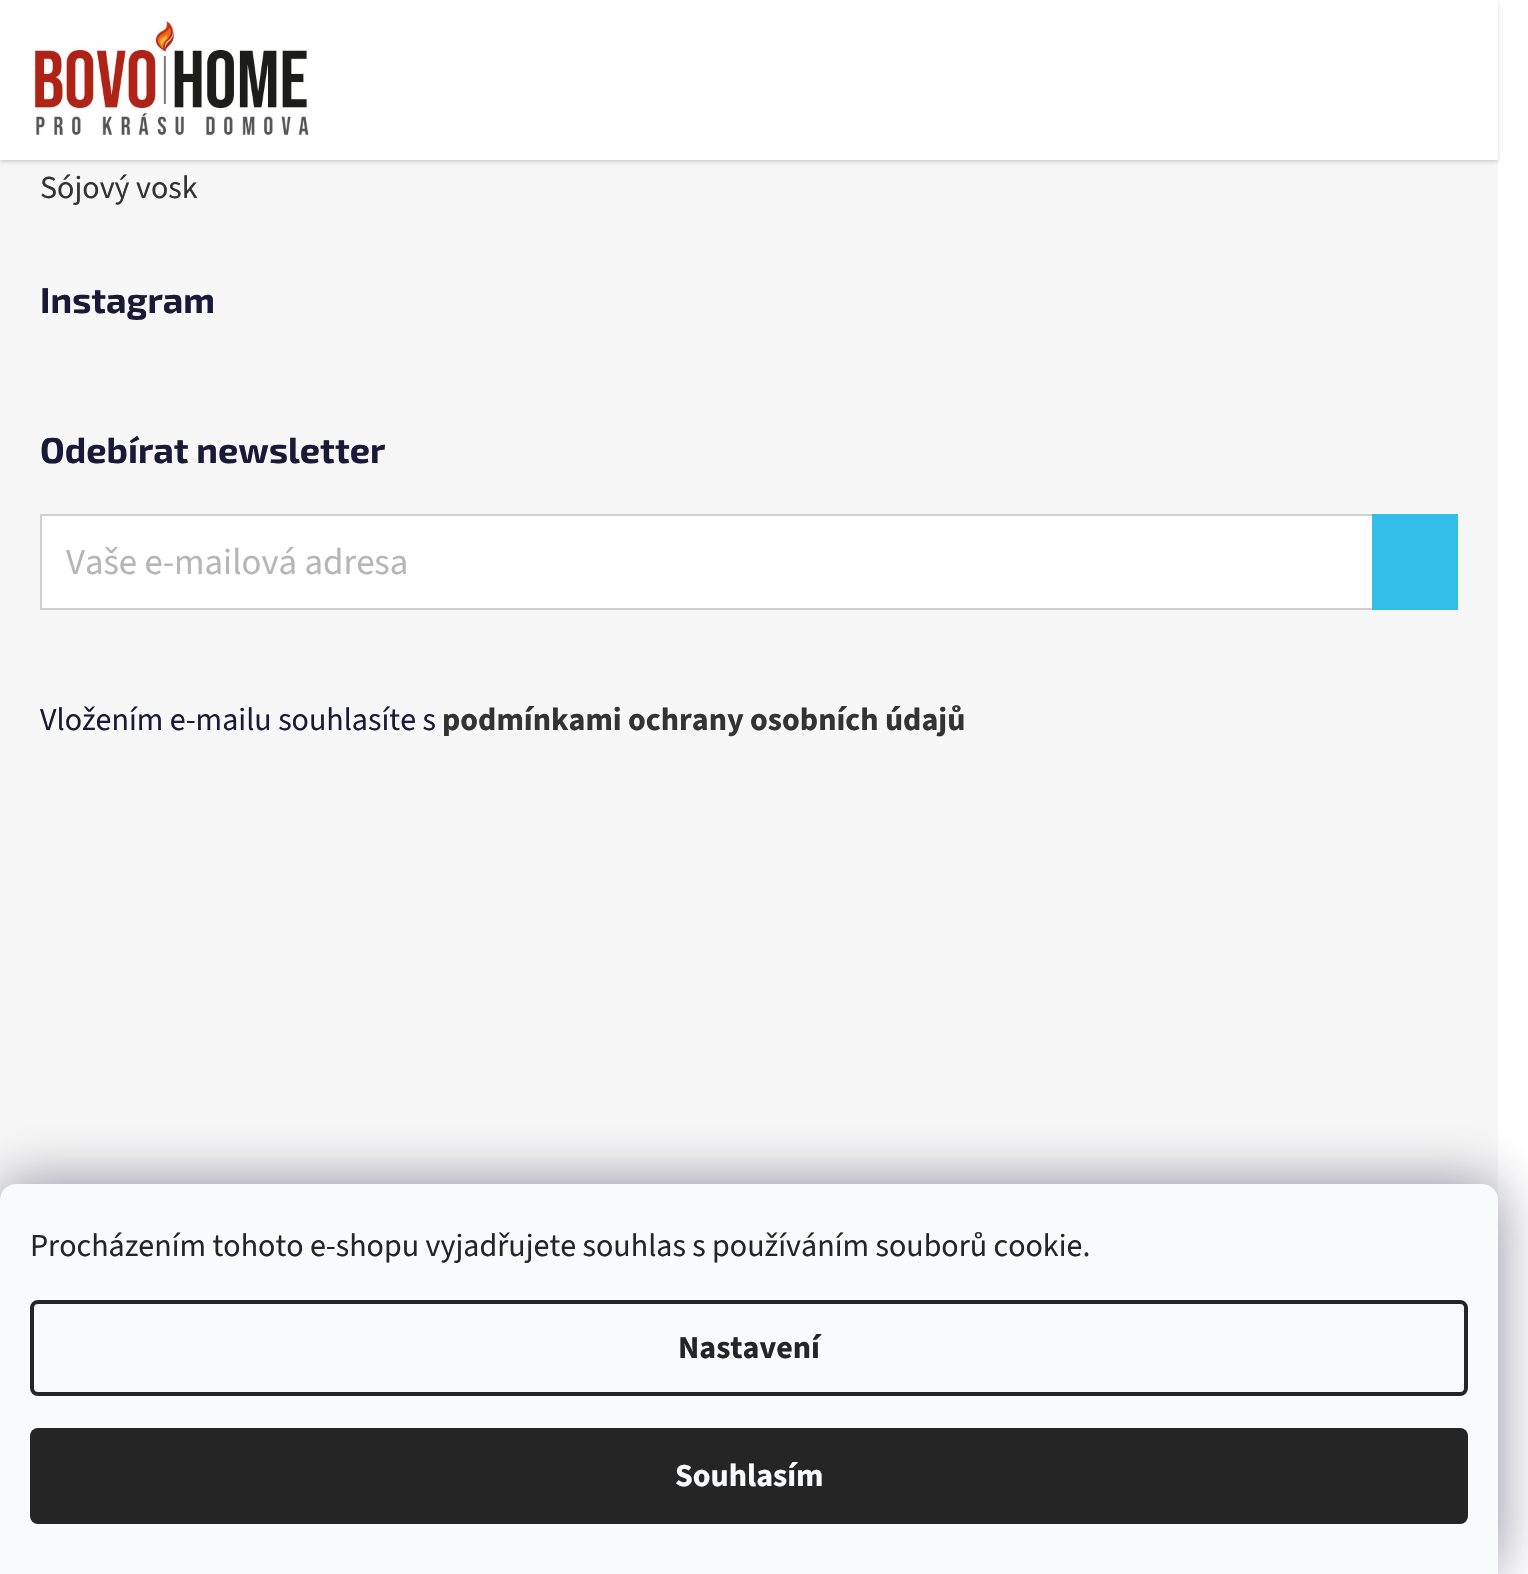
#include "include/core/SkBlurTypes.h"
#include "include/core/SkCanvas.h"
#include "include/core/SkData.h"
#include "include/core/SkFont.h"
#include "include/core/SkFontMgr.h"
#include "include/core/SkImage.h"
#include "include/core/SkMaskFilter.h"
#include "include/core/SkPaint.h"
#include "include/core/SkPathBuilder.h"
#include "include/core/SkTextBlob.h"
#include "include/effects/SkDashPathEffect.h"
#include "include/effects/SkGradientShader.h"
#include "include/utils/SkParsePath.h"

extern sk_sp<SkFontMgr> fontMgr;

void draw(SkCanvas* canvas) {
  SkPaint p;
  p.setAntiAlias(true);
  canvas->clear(SK_ColorWHITE);
  p.setColor(SkColorSetRGB(247, 247, 247));
  canvas->drawRect(SkRect::MakeLTRB(0, 160, 1498, 1200), p);
  p.setColor(SkColorSetARGB(41, 0, 0, 0));
  p.setMaskFilter(SkMaskFilter::MakeBlur(kNormal_SkBlurStyle, 2));
  canvas->drawRect(SkRect::MakeLTRB(0, 2, 1498, 162), p);
  p.setMaskFilter(nullptr);
  p.setColor(SK_ColorWHITE);
  canvas->drawRect(SkRect::MakeLTRB(0, 0, 1498, 160), p);
  canvas->drawImageRect(SkImages::DeferredFromEncodedData(SkData::MakeFromFileName("images/1.png")), SkRect::MakeLTRB(33, 20, 309, 135), SkSamplingOptions());
  canvas->drawRect(SkRect::MakeLTRB(42, 516, 1372, 608), p);
  p.setStyle(SkPaint::kStroke_Style);
  p.setStrokeWidth(2);
  p.setColor(SkColorSetRGB(207, 207, 207));
  canvas->drawRect(SkRect::MakeLTRB(41, 515, 1457, 609), p);
  p.setStyle(SkPaint::kFill_Style);
  p.setColor(SkColorSetRGB(51, 191, 233));
  canvas->drawRect(SkRect::MakeLTRB(1372, 514, 1458, 610), p);
  p.setColor(SkColorSetARGB(128, 27, 25, 57));
  p.setMaskFilter(SkMaskFilter::MakeBlur(kNormal_SkBlurStyle, 30));
  canvas->drawRoundRect(SkRect::MakeLTRB(0, 1184, 1498, 1574), 16, 16, p);
  p.setMaskFilter(nullptr);
  p.setColor(SkColorSetRGB(248, 250, 251));
  canvas->drawPath(SkPathBuilder().moveTo(16, 1184).lineTo(1482, 1184).cubicTo(1491, 1184, 1498, 1191, 1498, 1200).lineTo(1498, 1574).lineTo(0, 1574).lineTo(0, 1200).cubicTo(0, 1191, 7, 1184, 16, 1184).close().detach(), p);
  p.setStyle(SkPaint::kStroke_Style);
  p.setStrokeWidth(4);
  p.setColor(SkColorSetRGB(37, 37, 37));
  canvas->drawRoundRect(SkRect::MakeLTRB(32, 1302, 1466, 1394), 6, 6, p);
  p.setStyle(SkPaint::kFill_Style);
  canvas->drawRoundRect(SkRect::MakeLTRB(30, 1428, 1468, 1524), 8, 8, p);
  SkFont font1(fontMgr->matchFamilyStyle("Source Sans 3", SkFontStyle::Normal()), 32);
  font1.setSubpixel(true);
  p.setColor(SkColorSetRGB(51, 51, 51));
  canvas->drawString("Sójový vosk", 40, 198, font1, p);
  SkFont font2(fontMgr->matchFamilyStyle("Exo 2", SkFontStyle::Bold()), 36);
  font2.setSubpixel(true);
  p.setColor(SkColorSetRGB(26, 25, 55));
  canvas->drawString("Instagram", 40, 313, font2, p);
  canvas->drawString("Odebírat newsletter", 40, 463, font2, p);
  SkFont font3(fontMgr->matchFamilyStyle("Source Sans 3", SkFontStyle::Normal()), 36.75f);
  font3.setSubpixel(true);
  p.setColor(SkColorSetRGB(182, 182, 182));
  canvas->drawString("Vaše e-mailová adresa", 66, 574, font3, p);
  p.setColor(SkColorSetRGB(26, 25, 55));
  canvas->drawString("Vložením e-mailu souhlasíte s", 40, 730, font1, p);
  SkFont font4(fontMgr->matchFamilyStyle("Source Sans 3", SkFontStyle::Bold()), 32);
  font4.setSubpixel(true);
  p.setColor(SkColorSetRGB(51, 51, 51));
  canvas->drawString("podmínkami ochrany osobních údajů", 442, 730, font4, p);
  p.setColor(SkColorSetRGB(37, 37, 37));
  canvas->drawString("Procházením tohoto e-shopu vyjadřujete souhlas s používáním souborů cookie.", 30, 1256, font1, p);
  canvas->drawString("Nastavení", 678, 1358, font4, p);
  p.setColor(SkColorSetRGB(248, 250, 251));
  canvas->drawString("Souhlasím", 675, 1486, font4, p);
}
